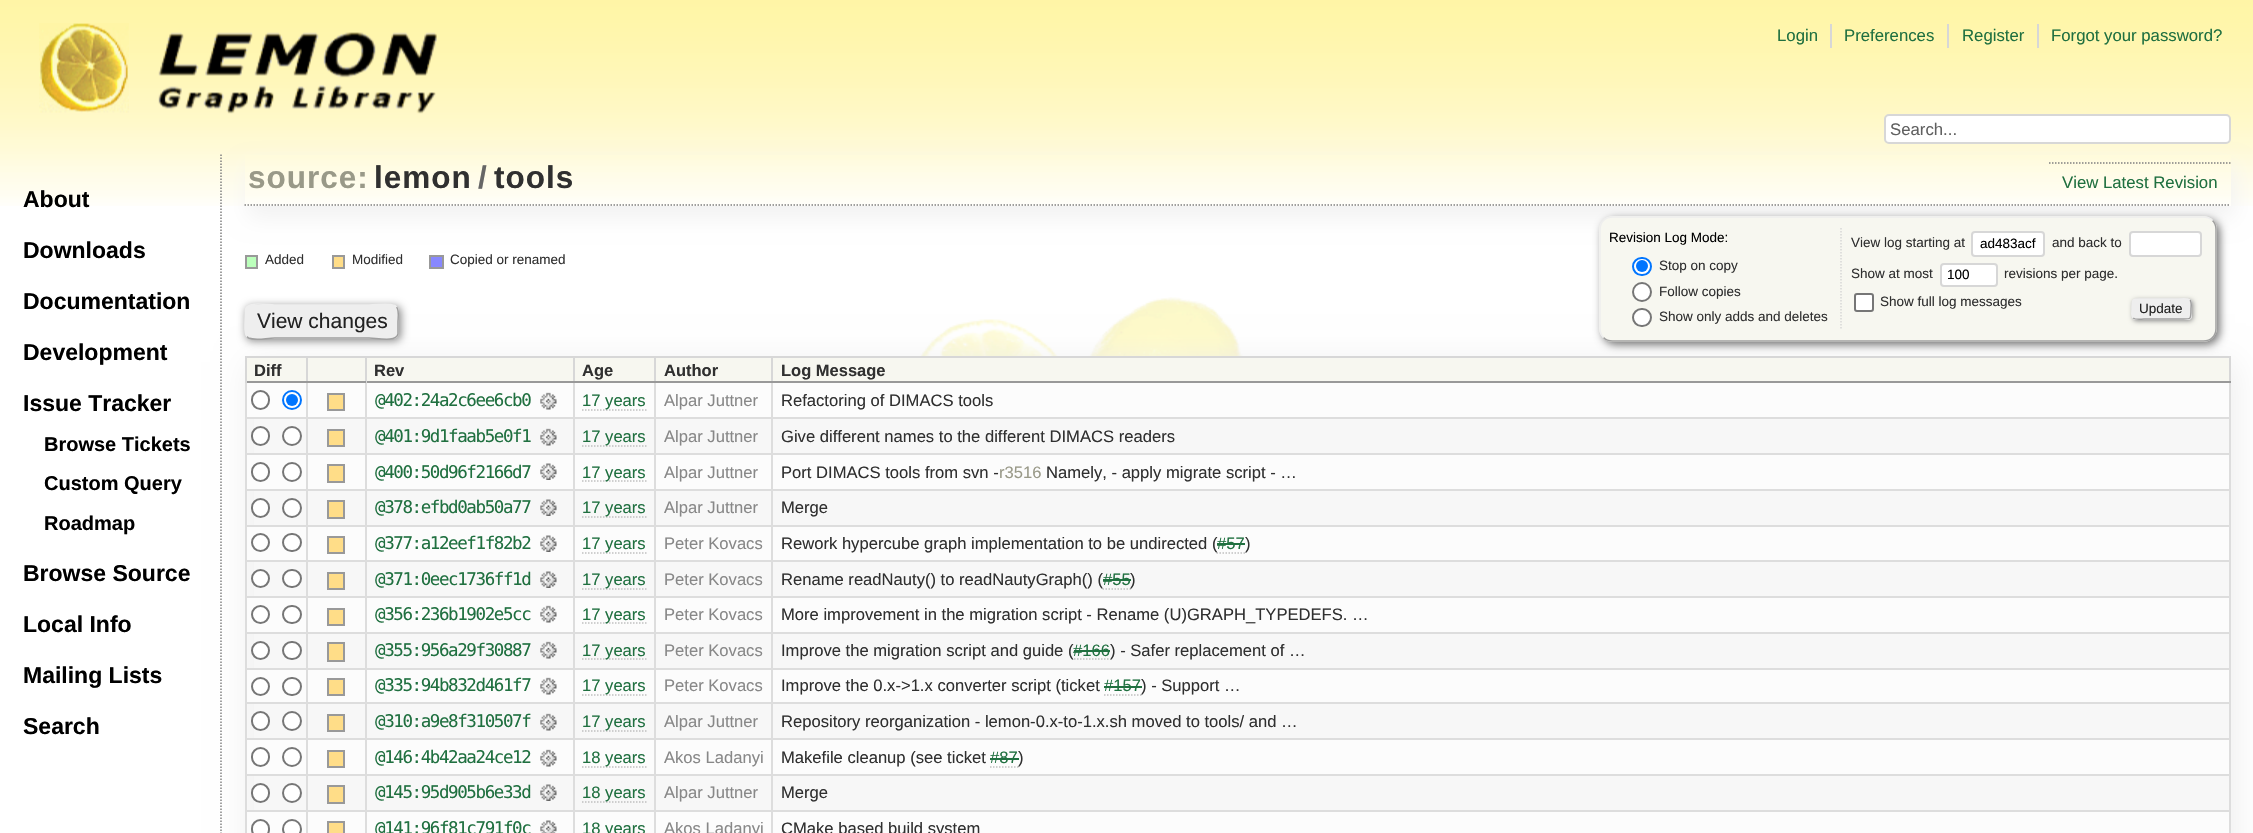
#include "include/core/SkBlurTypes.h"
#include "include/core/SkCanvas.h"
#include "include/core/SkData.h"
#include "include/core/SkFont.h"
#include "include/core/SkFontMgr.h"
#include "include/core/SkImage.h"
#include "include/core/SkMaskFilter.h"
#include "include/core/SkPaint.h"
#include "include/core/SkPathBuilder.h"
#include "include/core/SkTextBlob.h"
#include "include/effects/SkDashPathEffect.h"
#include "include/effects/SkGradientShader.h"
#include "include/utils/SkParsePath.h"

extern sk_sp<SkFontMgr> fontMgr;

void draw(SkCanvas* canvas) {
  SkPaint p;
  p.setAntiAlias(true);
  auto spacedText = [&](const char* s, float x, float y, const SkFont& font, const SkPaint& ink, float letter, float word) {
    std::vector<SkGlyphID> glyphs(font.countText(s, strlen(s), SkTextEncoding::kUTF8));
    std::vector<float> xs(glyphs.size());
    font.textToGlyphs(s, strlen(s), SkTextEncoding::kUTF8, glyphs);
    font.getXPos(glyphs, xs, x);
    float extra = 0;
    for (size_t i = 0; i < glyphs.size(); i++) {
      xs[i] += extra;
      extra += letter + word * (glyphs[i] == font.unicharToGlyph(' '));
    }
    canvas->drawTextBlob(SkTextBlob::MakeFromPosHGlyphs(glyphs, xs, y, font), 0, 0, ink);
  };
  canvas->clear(SK_ColorWHITE);
  canvas->drawImageRect(SkImages::DeferredFromEncodedData(SkData::MakeFromFileName("images/1.png")), SkRect::MakeLTRB(0, 0, 2253, 206), SkSamplingOptions());
  canvas->drawImageRect(SkImages::DeferredFromEncodedData(SkData::MakeFromFileName("images/2.png")), SkRect::MakeLTRB(39, 23, 129, 113), SkSamplingOptions());
  canvas->drawImageRect(SkImages::DeferredFromEncodedData(SkData::MakeFromFileName("images/3.png")), SkRect::MakeLTRB(912, 297, 1343, 356), SkSamplingOptions());
  p.setStyle(SkPaint::kStroke_Style);
  p.setStrokeWidth(1.5f);
  p.setColor(SkColorSetRGB(128, 128, 128));
  p.setPathEffect(SkDashPathEffect::Make({{1.5f, 1.5f}}, 0));
  canvas->drawPath(SkPathBuilder().moveTo(221, 154.5f).lineTo(221, 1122).detach(), p);
  p.setPathEffect(nullptr);
  p.setStyle(SkPaint::kFill_Style);
  p.setColor(SkColorSetRGB(215, 215, 215));
  canvas->drawRect(SkRect::MakeLTRB(1830, 24, 1832, 48), p);
  canvas->drawRect(SkRect::MakeLTRB(1947, 24, 1949, 48), p);
  canvas->drawRect(SkRect::MakeLTRB(2037, 24, 2039, 48), p);
  p.setColor(SK_ColorWHITE);
  canvas->drawRoundRect(SkRect::MakeLTRB(1885, 115, 2230, 143), 4, 4, p);
  p.setStyle(SkPaint::kStroke_Style);
  p.setStrokeWidth(2);
  p.setColor(SkColorSetRGB(215, 215, 215));
  canvas->drawRoundRect(SkRect::MakeLTRB(1885, 115, 2230, 143), 4, 4, p);
  canvas->save();
  canvas->clipPath(SkPathBuilder(SkPathFillType::kEvenOdd).moveTo(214, 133).lineTo(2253, 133).lineTo(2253, 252).lineTo(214, 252).close().moveTo(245, 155).lineTo(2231, 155).lineTo(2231, 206).lineTo(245, 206).close().detach(), true);
  p.setStyle(SkPaint::kFill_Style);
  p.setColor(SkColorSetRGB(242, 242, 242));
  p.setMaskFilter(SkMaskFilter::MakeBlur(kNormal_SkBlurStyle, 11));
  canvas->drawRect(SkRect::MakeLTRB(248, 167, 2234, 218), p);
  p.setMaskFilter(nullptr);
  canvas->restore();
  p.setStyle(SkPaint::kStroke_Style);
  p.setStrokeWidth(1.5f);
  p.setColor(SkColorSetRGB(128, 128, 128));
  p.setPathEffect(SkDashPathEffect::Make({{1.5f, 1.5f}}, 0));
  canvas->drawPath(SkPathBuilder().moveTo(244.5f, 205).lineTo(2230.5f, 205).detach(), p);
  p.setPathEffect(nullptr);
  p.setStyle(SkPaint::kFill_Style);
  p.setColor(SkColorSetRGB(187, 255, 187));
  canvas->drawRect(SkRect::MakeLTRB(246, 256, 257, 268), p);
  p.setStyle(SkPaint::kStroke_Style);
  p.setStrokeWidth(2);
  p.setColor(SkColorSetRGB(153, 153, 153));
  canvas->drawRect(SkRect::MakeLTRB(246, 256, 257, 268), p);
  p.setStyle(SkPaint::kFill_Style);
  p.setColor(SkColorSetRGB(255, 221, 136));
  canvas->drawRect(SkRect::MakeLTRB(333, 256, 344, 268), p);
  p.setStyle(SkPaint::kStroke_Style);
  p.setColor(SkColorSetRGB(153, 153, 153));
  canvas->drawRect(SkRect::MakeLTRB(333, 256, 344, 268), p);
  p.setStyle(SkPaint::kFill_Style);
  p.setColor(SkColorSetRGB(136, 136, 255));
  canvas->drawRect(SkRect::MakeLTRB(430, 256, 443, 268), p);
  p.setStyle(SkPaint::kStroke_Style);
  p.setColor(SkColorSetRGB(153, 153, 153));
  canvas->drawRect(SkRect::MakeLTRB(430, 256, 443, 268), p);
  p.setStyle(SkPaint::kFill_Style);
  p.setColor(SkColorSetRGB(238, 238, 238));
  p.setMaskFilter(SkMaskFilter::MakeBlur(kNormal_SkBlurStyle, 16));
  canvas->drawRect(SkRect::MakeLTRB(249, 362, 2235, 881), p);
  p.setMaskFilter(nullptr);
  p.setColor(SkColorSetRGB(247, 247, 240));
  canvas->drawRect(SkRect::MakeLTRB(247, 358, 2229, 381), p);
  p.setColor(SkColorSetRGB(215, 215, 215));
  canvas->drawRect(SkRect::MakeLTRB(771, 356, 2231, 358), p);
  p.setColor(SkColorSetRGB(221, 221, 221));
  canvas->drawRect(SkRect::MakeLTRB(245, 417, 2231, 419), p);
  canvas->drawRect(SkRect::MakeLTRB(245, 453, 2231, 455), p);
  canvas->drawRect(SkRect::MakeLTRB(245, 489, 2231, 491), p);
  canvas->drawRect(SkRect::MakeLTRB(245, 525, 2231, 527), p);
  canvas->drawRect(SkRect::MakeLTRB(245, 560, 2231, 562), p);
  canvas->drawRect(SkRect::MakeLTRB(245, 596, 2231, 598), p);
  canvas->drawRect(SkRect::MakeLTRB(245, 632, 2231, 634), p);
  canvas->drawRect(SkRect::MakeLTRB(245, 668, 2231, 670), p);
  canvas->drawRect(SkRect::MakeLTRB(245, 702, 2231, 704), p);
  canvas->drawRect(SkRect::MakeLTRB(245, 738, 2231, 740), p);
  canvas->drawRect(SkRect::MakeLTRB(245, 774, 2231, 776), p);
  canvas->drawRect(SkRect::MakeLTRB(245, 810, 2231, 812), p);
  canvas->drawRect(SkRect::MakeLTRB(2229, 381, 2231, 833), p);
  p.setColor(SkColorSetRGB(215, 215, 215));
  canvas->drawRect(SkRect::MakeLTRB(2229, 356, 2231, 383), p);
  p.setColor(SkColorSetRGB(119, 119, 119));
  p.setMaskFilter(SkMaskFilter::MakeBlur(kNormal_SkBlurStyle, 4.5f));
  canvas->drawRoundRect(SkRect::MakeLTRB(1602, 219, 2220, 345), 14, 14, p);
  p.setMaskFilter(nullptr);
  p.setColor(SkColorSetRGB(247, 247, 240));
  canvas->drawRoundRect(SkRect::MakeLTRB(1599, 216, 2217, 342), 14, 14, p);
  p.setStyle(SkPaint::kStroke_Style);
  p.setStrokeWidth(1.5f);
  p.setColor(SkColorSetRGB(159, 159, 159));
  canvas->drawPath(SkPathBuilder().moveTo(2212.5f, 220.5f).cubicTo(2215, 223, 2216, 226, 2216, 229.5f).lineTo(2216, 328.5f).cubicTo(2216, 332, 2215, 335, 2212.5f, 337.5f).cubicTo(2210, 340, 2207, 341, 2203.5f, 341).lineTo(1612.5f, 341).cubicTo(1609, 341, 1606, 340, 1603.5f, 337.5f).detach(), p);
  p.setColor(SkColorSetRGB(238, 238, 238));
  canvas->drawPath(SkPathBuilder().moveTo(1603.5f, 337.5f).cubicTo(1601, 335, 1600, 332, 1600, 328.5f).lineTo(1600, 229.5f).cubicTo(1600, 226, 1601, 223, 1603.5f, 220.5f).cubicTo(1606, 218, 1609, 217, 1612.5f, 217).lineTo(2203.5f, 217).cubicTo(2207, 217, 2210, 218, 2212.5f, 220.5f).detach(), p);
  p.setColor(SkColorSetRGB(215, 215, 215));
  p.setPathEffect(SkDashPathEffect::Make({{1.5f, 1.5f}}, 0));
  canvas->drawPath(SkPathBuilder().moveTo(1841, 228).lineTo(1841, 330).detach(), p);
  p.setPathEffect(nullptr);
  p.setStyle(SkPaint::kFill_Style);
  p.setColor(SK_ColorWHITE);
  canvas->drawRoundRect(SkRect::MakeLTRB(1633, 258, 1651, 275), 8.5f, 8.5f, p);
  p.setStyle(SkPaint::kStroke_Style);
  p.setStrokeWidth(2);
  p.setColor(SkColorSetRGB(0, 117, 255));
  canvas->drawRoundRect(SkRect::MakeLTRB(1633, 258, 1651, 275), 8.5f, 8.5f, p);
  p.setStyle(SkPaint::kFill_Style);
  canvas->drawCircle(1642, 266, 6, p);
  p.setColor(SK_ColorWHITE);
  canvas->drawCircle(1642, 292, 9, p);
  p.setStyle(SkPaint::kStroke_Style);
  p.setColor(SkColorSetRGB(118, 118, 118));
  canvas->drawCircle(1642, 292, 9, p);
  p.setStyle(SkPaint::kFill_Style);
  p.setColor(SK_ColorWHITE);
  canvas->drawRoundRect(SkRect::MakeLTRB(1633, 309, 1651, 326), 8.5f, 8.5f, p);
  p.setStyle(SkPaint::kStroke_Style);
  p.setColor(SkColorSetRGB(118, 118, 118));
  canvas->drawRoundRect(SkRect::MakeLTRB(1633, 309, 1651, 326), 8.5f, 8.5f, p);
  p.setStyle(SkPaint::kFill_Style);
  p.setColor(SK_ColorWHITE);
  canvas->drawRoundRect(SkRect::MakeLTRB(1972, 232, 2044, 256), 3, 3, p);
  p.setStyle(SkPaint::kStroke_Style);
  p.setColor(SkColorSetRGB(215, 215, 215));
  canvas->drawRoundRect(SkRect::MakeLTRB(1972, 232, 2044, 256), 3, 3, p);
  p.setStyle(SkPaint::kFill_Style);
  p.setColor(SK_ColorWHITE);
  canvas->drawRoundRect(SkRect::MakeLTRB(2130, 232, 2201, 256), 3, 3, p);
  p.setStyle(SkPaint::kStroke_Style);
  p.setColor(SkColorSetRGB(215, 215, 215));
  canvas->drawRoundRect(SkRect::MakeLTRB(2130, 232, 2201, 256), 3, 3, p);
  p.setStyle(SkPaint::kFill_Style);
  p.setColor(SK_ColorWHITE);
  canvas->drawRoundRect(SkRect::MakeLTRB(1941, 264, 1997, 286), 3, 3, p);
  p.setStyle(SkPaint::kStroke_Style);
  p.setColor(SkColorSetRGB(215, 215, 215));
  canvas->drawRoundRect(SkRect::MakeLTRB(1941, 264, 1997, 286), 3, 3, p);
  p.setStyle(SkPaint::kFill_Style);
  p.setColor(SK_ColorWHITE);
  canvas->drawRoundRect(SkRect::MakeLTRB(1855, 294, 1873, 311), 2, 2, p);
  p.setStyle(SkPaint::kStroke_Style);
  p.setColor(SkColorSetRGB(118, 118, 118));
  canvas->drawRoundRect(SkRect::MakeLTRB(1855, 294, 1873, 311), 2, 2, p);
  p.setStyle(SkPaint::kFill_Style);
  p.setColor(SkColorSetRGB(136, 136, 136));
  p.setMaskFilter(SkMaskFilter::MakeBlur(kNormal_SkBlurStyle, 2.5f));
  canvas->drawRoundRect(SkRect::MakeLTRB(2133, 300, 2193, 321), 4, 4, p);
  p.setMaskFilter(nullptr);
  p.setColor(SkColorSetRGB(238, 238, 238));
  canvas->drawRoundRect(SkRect::MakeLTRB(2132, 299, 2192, 320), 4, 4, p);
  p.setStyle(SkPaint::kStroke_Style);
  p.setStrokeWidth(1.5f);
  p.setColor(SkColorSetRGB(159, 159, 159));
  canvas->drawPath(SkPathBuilder().moveTo(2190, 300).cubicTo(2192, 302.5f, 2191, 306.5f, 2191, 309).cubicTo(2191, 320.5f, 2191, 319, 2179, 319).lineTo(2144, 319).cubicTo(2144, 319, 2135.5f, 320, 2133, 318).detach(), p);
  p.setColor(SkColorSetRGB(238, 238, 238));
  canvas->drawPath(SkPathBuilder().moveTo(2133, 318).cubicTo(2131, 315.5f, 2132, 311.5f, 2132, 309).cubicTo(2132, 297.5f, 2132, 299, 2144, 299).lineTo(2179, 299).cubicTo(2179, 299, 2187.5f, 298, 2190, 300).detach(), p);
  p.setStyle(SkPaint::kFill_Style);
  p.setColor(SkColorSetRGB(136, 136, 136));
  p.setMaskFilter(SkMaskFilter::MakeBlur(kNormal_SkBlurStyle, 4));
  canvas->drawRoundRect(SkRect::MakeLTRB(246, 306, 401, 341), 6, 6, p);
  p.setMaskFilter(nullptr);
  p.setColor(SkColorSetRGB(238, 238, 238));
  canvas->drawRoundRect(SkRect::MakeLTRB(245, 305, 399, 339), 6, 6, p);
  p.setStyle(SkPaint::kStroke_Style);
  p.setColor(SkColorSetRGB(159, 159, 159));
  canvas->drawPath(SkPathBuilder().moveTo(396.5f, 307).cubicTo(399.5f, 310, 398, 318, 398, 322).lineTo(398, 334).cubicTo(396.5f, 342.5f, 376.5f, 338, 369, 338).lineTo(274.5f, 338).cubicTo(266, 338, 256.5f, 341, 248.5f, 338).lineTo(247, 336.5f).detach(), p);
  p.setColor(SkColorSetRGB(238, 238, 238));
  canvas->drawPath(SkPathBuilder().moveTo(247, 336.5f).cubicTo(244, 333.5f, 245, 325.5f, 245, 322).lineTo(245.5f, 309.5f).cubicTo(247, 301, 267, 305, 274.5f, 305).lineTo(369, 305).cubicTo(377.5f, 305, 387, 302.5f, 395, 305.5f).lineTo(396.5f, 307).detach(), p);
  p.setStyle(SkPaint::kFill_Style);
  p.setColor(SkColorSetRGB(252, 252, 252));
  canvas->drawRect(SkRect::MakeLTRB(247, 383, 2229, 417), p);
  p.setColor(SkColorSetRGB(247, 247, 247));
  canvas->drawRect(SkRect::MakeLTRB(254, 419, 2229, 453), p);
  p.setColor(SkColorSetRGB(252, 252, 252));
  canvas->drawRect(SkRect::MakeLTRB(247, 455, 2229, 489), p);
  p.setColor(SkColorSetRGB(247, 247, 247));
  canvas->drawRect(SkRect::MakeLTRB(254, 491, 2229, 525), p);
  p.setColor(SkColorSetRGB(252, 252, 252));
  canvas->drawRect(SkRect::MakeLTRB(247, 527, 2229, 560), p);
  p.setColor(SkColorSetRGB(247, 247, 247));
  canvas->drawRect(SkRect::MakeLTRB(254, 562, 2229, 596), p);
  p.setColor(SkColorSetRGB(252, 252, 252));
  canvas->drawRect(SkRect::MakeLTRB(247, 598, 2229, 632), p);
  p.setColor(SkColorSetRGB(247, 247, 247));
  canvas->drawRect(SkRect::MakeLTRB(254, 634, 2229, 668), p);
  p.setColor(SkColorSetRGB(252, 252, 252));
  canvas->drawRect(SkRect::MakeLTRB(247, 670, 2229, 702), p);
  p.setColor(SkColorSetRGB(247, 247, 247));
  canvas->drawRect(SkRect::MakeLTRB(254, 704, 2229, 738), p);
  p.setColor(SkColorSetRGB(252, 252, 252));
  canvas->drawRect(SkRect::MakeLTRB(247, 740, 2229, 774), p);
  p.setColor(SkColorSetRGB(247, 247, 247));
  canvas->drawRect(SkRect::MakeLTRB(254, 776, 2229, 810), p);
  p.setColor(SkColorSetRGB(252, 252, 252));
  canvas->drawRect(SkRect::MakeLTRB(247, 812, 2229, 833), p);
  p.setColor(SkColorSetRGB(221, 221, 221));
  canvas->drawRect(SkRect::MakeLTRB(771, 381, 773, 833), p);
  p.setColor(SkColorSetRGB(153, 153, 153));
  canvas->drawRect(SkRect::MakeLTRB(771, 381, 2231, 383), p);
  p.setColor(SkColorSetRGB(215, 215, 215));
  canvas->drawRect(SkRect::MakeLTRB(771, 356, 773, 383), p);
  canvas->drawRect(SkRect::MakeLTRB(654, 356, 773, 358), p);
  p.setColor(SkColorSetRGB(221, 221, 221));
  canvas->drawRect(SkRect::MakeLTRB(654, 381, 656, 833), p);
  p.setColor(SkColorSetRGB(153, 153, 153));
  canvas->drawRect(SkRect::MakeLTRB(654, 381, 773, 383), p);
  p.setColor(SkColorSetRGB(215, 215, 215));
  canvas->drawRect(SkRect::MakeLTRB(654, 356, 656, 383), p);
  canvas->drawRect(SkRect::MakeLTRB(573, 356, 656, 358), p);
  p.setColor(SkColorSetRGB(221, 221, 221));
  canvas->drawRect(SkRect::MakeLTRB(573, 381, 575, 833), p);
  p.setColor(SkColorSetRGB(153, 153, 153));
  canvas->drawRect(SkRect::MakeLTRB(573, 381, 656, 383), p);
  p.setColor(SkColorSetRGB(215, 215, 215));
  canvas->drawRect(SkRect::MakeLTRB(573, 356, 575, 383), p);
  canvas->drawRect(SkRect::MakeLTRB(365, 356, 575, 358), p);
  p.setColor(SkColorSetRGB(221, 221, 221));
  canvas->drawRect(SkRect::MakeLTRB(365, 381, 367, 833), p);
  p.setColor(SkColorSetRGB(153, 153, 153));
  canvas->drawRect(SkRect::MakeLTRB(365, 381, 575, 383), p);
  p.setColor(SkColorSetRGB(215, 215, 215));
  canvas->drawRect(SkRect::MakeLTRB(365, 356, 367, 383), p);
  canvas->drawRect(SkRect::MakeLTRB(306, 356, 366, 358), p);
  p.setColor(SkColorSetRGB(221, 221, 221));
  canvas->drawRect(SkRect::MakeLTRB(306, 381, 308, 833), p);
  p.setColor(SkColorSetRGB(153, 153, 153));
  canvas->drawRect(SkRect::MakeLTRB(306, 381, 366, 383), p);
  p.setColor(SkColorSetRGB(215, 215, 215));
  canvas->drawRect(SkRect::MakeLTRB(306, 356, 308, 383), p);
  canvas->drawRect(SkRect::MakeLTRB(245, 356, 308, 358), p);
  p.setColor(SkColorSetRGB(221, 221, 221));
  canvas->drawRect(SkRect::MakeLTRB(245, 381, 247, 833), p);
  p.setColor(SkColorSetRGB(153, 153, 153));
  canvas->drawRect(SkRect::MakeLTRB(245, 381, 308, 383), p);
  p.setColor(SkColorSetRGB(215, 215, 215));
  canvas->drawRect(SkRect::MakeLTRB(245, 356, 247, 383), p);
  p.setColor(SK_ColorWHITE);
  canvas->drawRoundRect(SkRect::MakeLTRB(252, 391, 269, 409), 8.5f, 8.5f, p);
  p.setStyle(SkPaint::kStroke_Style);
  p.setStrokeWidth(2);
  p.setColor(SkColorSetRGB(118, 118, 118));
  canvas->drawRoundRect(SkRect::MakeLTRB(252, 391, 269, 409), 8.5f, 8.5f, p);
  p.setStyle(SkPaint::kFill_Style);
  p.setColor(SK_ColorWHITE);
  canvas->drawCircle(292, 400, 9, p);
  p.setStyle(SkPaint::kStroke_Style);
  p.setColor(SkColorSetRGB(0, 117, 255));
  canvas->drawCircle(292, 400, 9, p);
  p.setStyle(SkPaint::kFill_Style);
  canvas->drawCircle(292, 400, 6, p);
  p.setColor(SkColorSetRGB(255, 221, 136));
  canvas->drawRect(SkRect::MakeLTRB(328, 394, 344, 410), p);
  p.setStyle(SkPaint::kStroke_Style);
  p.setColor(SkColorSetRGB(153, 153, 153));
  canvas->drawRect(SkRect::MakeLTRB(328, 394, 344, 410), p);
  canvas->drawImageRect(SkImages::DeferredFromEncodedData(SkData::MakeFromFileName("images/4.png")), SkRect::MakeLTRB(540, 392, 557, 410), SkSamplingOptions());
  p.setStrokeWidth(1.5f);
  p.setColor(SkColorSetRGB(192, 192, 192));
  p.setPathEffect(SkDashPathEffect::Make({{1.5f, 1.5f}}, 0));
  canvas->drawPath(SkPathBuilder().moveTo(582, 410).lineTo(646.5f, 410).detach(), p);
  p.setPathEffect(nullptr);
  p.setStyle(SkPaint::kFill_Style);
  p.setColor(SK_ColorWHITE);
  canvas->drawRoundRect(SkRect::MakeLTRB(252, 427, 269, 445), 8.5f, 8.5f, p);
  p.setStyle(SkPaint::kStroke_Style);
  p.setStrokeWidth(2);
  p.setColor(SkColorSetRGB(118, 118, 118));
  canvas->drawRoundRect(SkRect::MakeLTRB(252, 427, 269, 445), 8.5f, 8.5f, p);
  p.setStyle(SkPaint::kFill_Style);
  p.setColor(SK_ColorWHITE);
  canvas->drawCircle(292, 436, 9, p);
  p.setStyle(SkPaint::kStroke_Style);
  p.setColor(SkColorSetRGB(118, 118, 118));
  canvas->drawCircle(292, 436, 9, p);
  p.setStyle(SkPaint::kFill_Style);
  p.setColor(SkColorSetRGB(255, 221, 136));
  canvas->drawRect(SkRect::MakeLTRB(328, 430, 344, 446), p);
  p.setStyle(SkPaint::kStroke_Style);
  p.setColor(SkColorSetRGB(153, 153, 153));
  canvas->drawRect(SkRect::MakeLTRB(328, 430, 344, 446), p);
  canvas->drawImageRect(SkImages::DeferredFromEncodedData(SkData::MakeFromFileName("images/5.png")), SkRect::MakeLTRB(540, 428, 557, 446), SkSamplingOptions());
  p.setStrokeWidth(1.5f);
  p.setColor(SkColorSetRGB(192, 192, 192));
  p.setPathEffect(SkDashPathEffect::Make({{1.5f, 1.5f}}, 0));
  canvas->drawPath(SkPathBuilder().moveTo(582, 446).lineTo(646.5f, 446).detach(), p);
  p.setPathEffect(nullptr);
  p.setStyle(SkPaint::kFill_Style);
  p.setColor(SK_ColorWHITE);
  canvas->drawRoundRect(SkRect::MakeLTRB(252, 463, 269, 481), 8.5f, 8.5f, p);
  p.setStyle(SkPaint::kStroke_Style);
  p.setStrokeWidth(2);
  p.setColor(SkColorSetRGB(118, 118, 118));
  canvas->drawRoundRect(SkRect::MakeLTRB(252, 463, 269, 481), 8.5f, 8.5f, p);
  p.setStyle(SkPaint::kFill_Style);
  p.setColor(SK_ColorWHITE);
  canvas->drawCircle(292, 472, 9, p);
  p.setStyle(SkPaint::kStroke_Style);
  p.setColor(SkColorSetRGB(118, 118, 118));
  canvas->drawCircle(292, 472, 9, p);
  p.setStyle(SkPaint::kFill_Style);
  p.setColor(SkColorSetRGB(255, 221, 136));
  canvas->drawRect(SkRect::MakeLTRB(328, 465, 344, 482), p);
  p.setStyle(SkPaint::kStroke_Style);
  p.setColor(SkColorSetRGB(153, 153, 153));
  canvas->drawRect(SkRect::MakeLTRB(328, 465, 344, 482), p);
  canvas->drawImageRect(SkImages::DeferredFromEncodedData(SkData::MakeFromFileName("images/6.png")), SkRect::MakeLTRB(540, 463, 557, 480), SkSamplingOptions());
  p.setStrokeWidth(1.5f);
  p.setColor(SkColorSetRGB(192, 192, 192));
  p.setPathEffect(SkDashPathEffect::Make({{1.5f, 1.5f}}, 0));
  canvas->drawPath(SkPathBuilder().moveTo(582, 481).lineTo(646.5f, 481).detach(), p);
  p.setPathEffect(nullptr);
  p.setStyle(SkPaint::kFill_Style);
  p.setColor(SK_ColorWHITE);
  canvas->drawRoundRect(SkRect::MakeLTRB(252, 499, 269, 517), 8.5f, 8.5f, p);
  p.setStyle(SkPaint::kStroke_Style);
  p.setStrokeWidth(2);
  p.setColor(SkColorSetRGB(118, 118, 118));
  canvas->drawRoundRect(SkRect::MakeLTRB(252, 499, 269, 517), 8.5f, 8.5f, p);
  p.setStyle(SkPaint::kFill_Style);
  p.setColor(SK_ColorWHITE);
  canvas->drawCircle(292, 508, 9, p);
  p.setStyle(SkPaint::kStroke_Style);
  p.setColor(SkColorSetRGB(118, 118, 118));
  canvas->drawCircle(292, 508, 9, p);
  p.setStyle(SkPaint::kFill_Style);
  p.setColor(SkColorSetRGB(255, 221, 136));
  canvas->drawRect(SkRect::MakeLTRB(328, 501, 344, 518), p);
  p.setStyle(SkPaint::kStroke_Style);
  p.setColor(SkColorSetRGB(153, 153, 153));
  canvas->drawRect(SkRect::MakeLTRB(328, 501, 344, 518), p);
  canvas->drawImageRect(SkImages::DeferredFromEncodedData(SkData::MakeFromFileName("images/7.png")), SkRect::MakeLTRB(540, 499, 557, 516), SkSamplingOptions());
  p.setStrokeWidth(1.5f);
  p.setColor(SkColorSetRGB(192, 192, 192));
  p.setPathEffect(SkDashPathEffect::Make({{1.5f, 1.5f}}, 0));
  canvas->drawPath(SkPathBuilder().moveTo(582, 517).lineTo(646.5f, 517).detach(), p);
  p.setPathEffect(nullptr);
  p.setStyle(SkPaint::kFill_Style);
  p.setColor(SK_ColorWHITE);
  canvas->drawCircle(260.5f, 542.5f, 8.5f, p);
  p.setStyle(SkPaint::kStroke_Style);
  p.setStrokeWidth(2);
  p.setColor(SkColorSetRGB(118, 118, 118));
  canvas->drawCircle(260.5f, 542.5f, 8.5f, p);
  p.setStyle(SkPaint::kFill_Style);
  p.setColor(SK_ColorWHITE);
  canvas->drawRoundRect(SkRect::MakeLTRB(283, 534, 301, 551), 8.5f, 8.5f, p);
  p.setStyle(SkPaint::kStroke_Style);
  p.setColor(SkColorSetRGB(118, 118, 118));
  canvas->drawRoundRect(SkRect::MakeLTRB(283, 534, 301, 551), 8.5f, 8.5f, p);
  p.setStyle(SkPaint::kFill_Style);
  p.setColor(SkColorSetRGB(255, 221, 136));
  canvas->drawRect(SkRect::MakeLTRB(328, 537, 344, 553), p);
  p.setStyle(SkPaint::kStroke_Style);
  p.setColor(SkColorSetRGB(153, 153, 153));
  canvas->drawRect(SkRect::MakeLTRB(328, 537, 344, 553), p);
  canvas->drawImageRect(SkImages::DeferredFromEncodedData(SkData::MakeFromFileName("images/6.png")), SkRect::MakeLTRB(540, 535, 557, 552), SkSamplingOptions());
  p.setStrokeWidth(1.5f);
  p.setColor(SkColorSetRGB(192, 192, 192));
  p.setPathEffect(SkDashPathEffect::Make({{1.5f, 1.5f}}, 0));
  canvas->drawPath(SkPathBuilder().moveTo(582, 553).lineTo(646.5f, 553).detach(), p);
  p.setPathEffect(nullptr);
  p.setStyle(SkPaint::kFill_Style);
  p.setColor(SK_ColorWHITE);
  canvas->drawCircle(260.5f, 578.5f, 8.5f, p);
  p.setStyle(SkPaint::kStroke_Style);
  p.setStrokeWidth(2);
  p.setColor(SkColorSetRGB(118, 118, 118));
  canvas->drawCircle(260.5f, 578.5f, 8.5f, p);
  p.setStyle(SkPaint::kFill_Style);
  p.setColor(SK_ColorWHITE);
  canvas->drawRoundRect(SkRect::MakeLTRB(283, 570, 301, 587), 8.5f, 8.5f, p);
  p.setStyle(SkPaint::kStroke_Style);
  p.setColor(SkColorSetRGB(118, 118, 118));
  canvas->drawRoundRect(SkRect::MakeLTRB(283, 570, 301, 587), 8.5f, 8.5f, p);
  p.setStyle(SkPaint::kFill_Style);
  p.setColor(SkColorSetRGB(255, 221, 136));
  canvas->drawRect(SkRect::MakeLTRB(328, 573, 344, 589), p);
  p.setStyle(SkPaint::kStroke_Style);
  p.setColor(SkColorSetRGB(153, 153, 153));
  canvas->drawRect(SkRect::MakeLTRB(328, 573, 344, 589), p);
  canvas->drawImageRect(SkImages::DeferredFromEncodedData(SkData::MakeFromFileName("images/7.png")), SkRect::MakeLTRB(540, 571, 557, 588), SkSamplingOptions());
  p.setStrokeWidth(1.5f);
  p.setColor(SkColorSetRGB(192, 192, 192));
  p.setPathEffect(SkDashPathEffect::Make({{1.5f, 1.5f}}, 0));
  canvas->drawPath(SkPathBuilder().moveTo(582, 589).lineTo(646.5f, 589).detach(), p);
  p.setPathEffect(nullptr);
  p.setStyle(SkPaint::kFill_Style);
  p.setColor(SkColorSetRGB(32, 112, 64));
  canvas->drawRect(SkRect::MakeLTRB(1103, 579, 1131, 581), p);
  p.setColor(SK_ColorWHITE);
  canvas->drawCircle(260.5f, 614.5f, 8.5f, p);
  p.setStyle(SkPaint::kStroke_Style);
  p.setStrokeWidth(2);
  p.setColor(SkColorSetRGB(118, 118, 118));
  canvas->drawCircle(260.5f, 614.5f, 8.5f, p);
  p.setStyle(SkPaint::kFill_Style);
  p.setColor(SK_ColorWHITE);
  canvas->drawRoundRect(SkRect::MakeLTRB(283, 606, 301, 623), 8.5f, 8.5f, p);
  p.setStyle(SkPaint::kStroke_Style);
  p.setColor(SkColorSetRGB(118, 118, 118));
  canvas->drawRoundRect(SkRect::MakeLTRB(283, 606, 301, 623), 8.5f, 8.5f, p);
  p.setStyle(SkPaint::kFill_Style);
  p.setColor(SkColorSetRGB(255, 221, 136));
  canvas->drawRect(SkRect::MakeLTRB(328, 609, 344, 625), p);
  p.setStyle(SkPaint::kStroke_Style);
  p.setColor(SkColorSetRGB(153, 153, 153));
  canvas->drawRect(SkRect::MakeLTRB(328, 609, 344, 625), p);
  canvas->drawImageRect(SkImages::DeferredFromEncodedData(SkData::MakeFromFileName("images/4.png")), SkRect::MakeLTRB(540, 605, 557, 623), SkSamplingOptions());
  p.setStrokeWidth(1.5f);
  p.setColor(SkColorSetRGB(192, 192, 192));
  p.setPathEffect(SkDashPathEffect::Make({{1.5f, 1.5f}}, 0));
  canvas->drawPath(SkPathBuilder().moveTo(582, 623).lineTo(646.5f, 623).detach(), p);
  p.setPathEffect(nullptr);
  p.setStyle(SkPaint::kFill_Style);
  p.setColor(SK_ColorWHITE);
  canvas->drawCircle(260.5f, 650.5f, 8.5f, p);
  p.setStyle(SkPaint::kStroke_Style);
  p.setStrokeWidth(2);
  p.setColor(SkColorSetRGB(118, 118, 118));
  canvas->drawCircle(260.5f, 650.5f, 8.5f, p);
  p.setStyle(SkPaint::kFill_Style);
  p.setColor(SK_ColorWHITE);
  canvas->drawRoundRect(SkRect::MakeLTRB(283, 642, 301, 659), 8.5f, 8.5f, p);
  p.setStyle(SkPaint::kStroke_Style);
  p.setColor(SkColorSetRGB(118, 118, 118));
  canvas->drawRoundRect(SkRect::MakeLTRB(283, 642, 301, 659), 8.5f, 8.5f, p);
  p.setStyle(SkPaint::kFill_Style);
  p.setColor(SkColorSetRGB(255, 221, 136));
  canvas->drawRect(SkRect::MakeLTRB(328, 643, 344, 661), p);
  p.setStyle(SkPaint::kStroke_Style);
  p.setColor(SkColorSetRGB(153, 153, 153));
  canvas->drawRect(SkRect::MakeLTRB(328, 643, 344, 661), p);
  canvas->drawImageRect(SkImages::DeferredFromEncodedData(SkData::MakeFromFileName("images/5.png")), SkRect::MakeLTRB(540, 641, 557, 659), SkSamplingOptions());
  p.setStrokeWidth(1.5f);
  p.setColor(SkColorSetRGB(192, 192, 192));
  p.setPathEffect(SkDashPathEffect::Make({{1.5f, 1.5f}}, 0));
  canvas->drawPath(SkPathBuilder().moveTo(582, 659).lineTo(646.5f, 659).detach(), p);
  p.setPathEffect(nullptr);
  p.setPathEffect(SkDashPathEffect::Make({{1.5f, 1.5f}}, 0));
  canvas->drawPath(SkPathBuilder().moveTo(1074, 659).lineTo(1110, 659).detach(), p);
  p.setPathEffect(nullptr);
  p.setStyle(SkPaint::kFill_Style);
  p.setColor(SkColorSetRGB(32, 112, 64));
  canvas->drawRect(SkRect::MakeLTRB(1074, 650, 1110, 652), p);
  p.setColor(SK_ColorWHITE);
  canvas->drawCircle(260.5f, 686.5f, 8.5f, p);
  p.setStyle(SkPaint::kStroke_Style);
  p.setStrokeWidth(2);
  p.setColor(SkColorSetRGB(118, 118, 118));
  canvas->drawCircle(260.5f, 686.5f, 8.5f, p);
  p.setStyle(SkPaint::kFill_Style);
  p.setColor(SK_ColorWHITE);
  canvas->drawRoundRect(SkRect::MakeLTRB(283, 678, 301, 695), 8.5f, 8.5f, p);
  p.setStyle(SkPaint::kStroke_Style);
  p.setColor(SkColorSetRGB(118, 118, 118));
  canvas->drawRoundRect(SkRect::MakeLTRB(283, 678, 301, 695), 8.5f, 8.5f, p);
  p.setStyle(SkPaint::kFill_Style);
  p.setColor(SkColorSetRGB(255, 221, 136));
  canvas->drawRect(SkRect::MakeLTRB(328, 679, 344, 695), p);
  p.setStyle(SkPaint::kStroke_Style);
  p.setColor(SkColorSetRGB(153, 153, 153));
  canvas->drawRect(SkRect::MakeLTRB(328, 679, 344, 695), p);
  canvas->drawImageRect(SkImages::DeferredFromEncodedData(SkData::MakeFromFileName("images/4.png")), SkRect::MakeLTRB(540, 677, 557, 695), SkSamplingOptions());
  p.setStrokeWidth(1.5f);
  p.setColor(SkColorSetRGB(192, 192, 192));
  p.setPathEffect(SkDashPathEffect::Make({{1.5f, 1.5f}}, 0));
  canvas->drawPath(SkPathBuilder().moveTo(582, 695).lineTo(646.5f, 695).detach(), p);
  p.setPathEffect(nullptr);
  p.setPathEffect(SkDashPathEffect::Make({{1.5f, 1.5f}}, 0));
  canvas->drawPath(SkPathBuilder().moveTo(1104, 695).lineTo(1141.5f, 695).detach(), p);
  p.setPathEffect(nullptr);
  p.setStyle(SkPaint::kFill_Style);
  p.setColor(SkColorSetRGB(32, 112, 64));
  canvas->drawRect(SkRect::MakeLTRB(1104, 686, 1142, 688), p);
  p.setColor(SK_ColorWHITE);
  canvas->drawRoundRect(SkRect::MakeLTRB(252, 712, 269, 730), 8.5f, 8.5f, p);
  p.setStyle(SkPaint::kStroke_Style);
  p.setStrokeWidth(2);
  p.setColor(SkColorSetRGB(118, 118, 118));
  canvas->drawRoundRect(SkRect::MakeLTRB(252, 712, 269, 730), 8.5f, 8.5f, p);
  p.setStyle(SkPaint::kFill_Style);
  p.setColor(SK_ColorWHITE);
  canvas->drawCircle(292, 721, 9, p);
  p.setStyle(SkPaint::kStroke_Style);
  p.setColor(SkColorSetRGB(118, 118, 118));
  canvas->drawCircle(292, 721, 9, p);
  p.setStyle(SkPaint::kFill_Style);
  p.setColor(SkColorSetRGB(255, 221, 136));
  canvas->drawRect(SkRect::MakeLTRB(328, 715, 344, 731), p);
  p.setStyle(SkPaint::kStroke_Style);
  p.setColor(SkColorSetRGB(153, 153, 153));
  canvas->drawRect(SkRect::MakeLTRB(328, 715, 344, 731), p);
  canvas->drawImageRect(SkImages::DeferredFromEncodedData(SkData::MakeFromFileName("images/5.png")), SkRect::MakeLTRB(540, 713, 557, 731), SkSamplingOptions());
  p.setStrokeWidth(1.5f);
  p.setColor(SkColorSetRGB(192, 192, 192));
  p.setPathEffect(SkDashPathEffect::Make({{1.5f, 1.5f}}, 0));
  canvas->drawPath(SkPathBuilder().moveTo(582, 731).lineTo(646.5f, 731).detach(), p);
  p.setPathEffect(nullptr);
  p.setStyle(SkPaint::kFill_Style);
  p.setColor(SK_ColorWHITE);
  canvas->drawRoundRect(SkRect::MakeLTRB(252, 748, 269, 766), 8.5f, 8.5f, p);
  p.setStyle(SkPaint::kStroke_Style);
  p.setStrokeWidth(2);
  p.setColor(SkColorSetRGB(118, 118, 118));
  canvas->drawRoundRect(SkRect::MakeLTRB(252, 748, 269, 766), 8.5f, 8.5f, p);
  p.setStyle(SkPaint::kFill_Style);
  p.setColor(SK_ColorWHITE);
  canvas->drawCircle(292, 757, 9, p);
  p.setStyle(SkPaint::kStroke_Style);
  p.setColor(SkColorSetRGB(118, 118, 118));
  canvas->drawCircle(292, 757, 9, p);
  p.setStyle(SkPaint::kFill_Style);
  p.setColor(SkColorSetRGB(255, 221, 136));
  canvas->drawRect(SkRect::MakeLTRB(328, 751, 344, 767), p);
  p.setStyle(SkPaint::kStroke_Style);
  p.setColor(SkColorSetRGB(153, 153, 153));
  canvas->drawRect(SkRect::MakeLTRB(328, 751, 344, 767), p);
  canvas->drawImageRect(SkImages::DeferredFromEncodedData(SkData::MakeFromFileName("images/4.png")), SkRect::MakeLTRB(540, 749, 557, 767), SkSamplingOptions());
  p.setStrokeWidth(1.5f);
  p.setColor(SkColorSetRGB(192, 192, 192));
  p.setPathEffect(SkDashPathEffect::Make({{1.5f, 1.5f}}, 0));
  canvas->drawPath(SkPathBuilder().moveTo(582, 767).lineTo(646.5f, 767).detach(), p);
  p.setPathEffect(nullptr);
  p.setPathEffect(SkDashPathEffect::Make({{1.5f, 1.5f}}, 0));
  canvas->drawPath(SkPathBuilder().moveTo(990, 767).lineTo(1018.5f, 767).detach(), p);
  p.setPathEffect(nullptr);
  p.setStyle(SkPaint::kFill_Style);
  p.setColor(SkColorSetRGB(32, 112, 64));
  canvas->drawRect(SkRect::MakeLTRB(990, 758, 1019, 760), p);
  p.setColor(SK_ColorWHITE);
  canvas->drawRoundRect(SkRect::MakeLTRB(252, 784, 269, 802), 8.5f, 8.5f, p);
  p.setStyle(SkPaint::kStroke_Style);
  p.setStrokeWidth(2);
  p.setColor(SkColorSetRGB(118, 118, 118));
  canvas->drawRoundRect(SkRect::MakeLTRB(252, 784, 269, 802), 8.5f, 8.5f, p);
  p.setStyle(SkPaint::kFill_Style);
  p.setColor(SK_ColorWHITE);
  canvas->drawCircle(292, 793, 9, p);
  p.setStyle(SkPaint::kStroke_Style);
  p.setColor(SkColorSetRGB(118, 118, 118));
  canvas->drawCircle(292, 793, 9, p);
  p.setStyle(SkPaint::kFill_Style);
  p.setColor(SkColorSetRGB(255, 221, 136));
  canvas->drawRect(SkRect::MakeLTRB(328, 786, 344, 803), p);
  p.setStyle(SkPaint::kStroke_Style);
  p.setColor(SkColorSetRGB(153, 153, 153));
  canvas->drawRect(SkRect::MakeLTRB(328, 786, 344, 803), p);
  canvas->drawImageRect(SkImages::DeferredFromEncodedData(SkData::MakeFromFileName("images/7.png")), SkRect::MakeLTRB(540, 784, 557, 801), SkSamplingOptions());
  p.setStrokeWidth(1.5f);
  p.setColor(SkColorSetRGB(192, 192, 192));
  p.setPathEffect(SkDashPathEffect::Make({{1.5f, 1.5f}}, 0));
  canvas->drawPath(SkPathBuilder().moveTo(582, 802).lineTo(646.5f, 802).detach(), p);
  p.setPathEffect(nullptr);
  p.setStyle(SkPaint::kFill_Style);
  p.setColor(SK_ColorWHITE);
  canvas->drawRoundRect(SkRect::MakeLTRB(252, 820, 269, 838), 8.5f, 8.5f, p);
  p.setStyle(SkPaint::kStroke_Style);
  p.setStrokeWidth(2);
  p.setColor(SkColorSetRGB(118, 118, 118));
  canvas->drawRoundRect(SkRect::MakeLTRB(252, 820, 269, 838), 8.5f, 8.5f, p);
  p.setStyle(SkPaint::kFill_Style);
  p.setColor(SK_ColorWHITE);
  canvas->drawCircle(292, 829, 9, p);
  p.setStyle(SkPaint::kStroke_Style);
  p.setColor(SkColorSetRGB(118, 118, 118));
  canvas->drawCircle(292, 829, 9, p);
  p.setStyle(SkPaint::kFill_Style);
  p.setColor(SkColorSetRGB(255, 221, 136));
  canvas->drawRect(SkRect::MakeLTRB(328, 822, 344, 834), p);
  p.setStyle(SkPaint::kStroke_Style);
  p.setColor(SkColorSetRGB(153, 153, 153));
  canvas->drawRect(SkRect::MakeLTRB(328, 822, 344, 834), p);
  canvas->drawImageRect(SkImages::DeferredFromEncodedData(SkData::MakeFromFileName("images/8.png")), SkRect::MakeLTRB(540, 820, 557, 833), SkSamplingOptions());
  p.setStrokeWidth(1.5f);
  p.setColor(SkColorSetRGB(128, 128, 128));
  p.setPathEffect(SkDashPathEffect::Make({{1.5f, 1.5f}}, 0));
  canvas->drawPath(SkPathBuilder().moveTo(2049, 163).lineTo(2230.5f, 163).detach(), p);
  p.setPathEffect(nullptr);
  canvas->drawImageRect(SkImages::DeferredFromEncodedData(SkData::MakeFromFileName("images/9.png")), SkRect::MakeLTRB(158, 32, 437, 114), SkSamplingOptions());
  SkFont font1(fontMgr->matchFamilyStyle("Liberation Sans", SkFontStyle::Normal()), 16.75f);
  font1.setSubpixel(true);
  p.setStyle(SkPaint::kFill_Style);
  p.setColor(SkColorSetRGB(32, 112, 64));
  canvas->drawString("Login", 1777, 41, font1, p);
  canvas->drawString("Preferences", 1844, 41, font1, p);
  canvas->drawString("Register", 1962, 41, font1, p);
  canvas->drawString("Forgot your password?", 2051, 41, font1, p);
  SkFont font2(fontMgr->matchFamilyStyle("Liberation Sans", SkFontStyle::Bold()), 31.5f);
  font2.setSubpixel(true);
  p.setColor(SkColorSetRGB(153, 153, 136));
  spacedText("source:", 248, 188, font2, p, 1, 0);
  p.setColor(SkColorSetRGB(48, 48, 48));
  spacedText("lemon", 374, 188, font2, p, 1, 0);
  p.setColor(SkColorSetRGB(102, 102, 102));
  spacedText("/", 478, 188, font2, p, 1, 0);
  p.setColor(SkColorSetRGB(48, 48, 48));
  spacedText("tools", 494, 188, font2, p, 1, 0);
  SkFont font3(fontMgr->matchFamilyStyle("Liberation Sans", SkFontStyle::Normal()), 13.5f);
  font3.setSubpixel(true);
  canvas->drawString("Added", 265, 264, font3, p);
  canvas->drawString("Modified", 352, 264, font3, p);
  canvas->drawString("Copied or renamed", 450, 264, font3, p);
  p.setColor(SK_ColorBLACK);
  canvas->drawString("Revision Log Mode:", 1609, 242, font3, p);
  p.setColor(SkColorSetRGB(48, 48, 48));
  canvas->drawString("Stop on copy", 1659, 270, font3, p);
  canvas->drawString("Follow copies", 1659, 296, font3, p);
  canvas->drawString("Show only adds and deletes", 1659, 321, font3, p);
  canvas->drawString("View log starting at", 1851, 247, font3, p);
  p.setColor(SK_ColorBLACK);
  canvas->drawString("ad483acf", 1980, 248, font3, p);
  p.setColor(SkColorSetRGB(48, 48, 48));
  canvas->drawString("and back to", 2052, 247, font3, p);
  canvas->drawString("Show at most", 1851, 278, font3, p);
  p.setColor(SK_ColorBLACK);
  canvas->drawString("100", 1947, 279, font3, p);
  p.setColor(SkColorSetRGB(48, 48, 48));
  canvas->drawString("revisions per page.", 2004, 278, font3, p);
  canvas->drawString("Show full log messages", 1880, 306, font3, p);
  p.setColor(SkColorSetRGB(34, 34, 34));
  canvas->drawString("Update", 2139, 313, font3, p);
  SkFont font4(fontMgr->matchFamilyStyle("Liberation Sans", SkFontStyle::Normal()), 21);
  font4.setSubpixel(true);
  canvas->drawString("View changes", 257, 328, font4, p);
  SkFont font5(fontMgr->matchFamilyStyle("Liberation Sans", SkFontStyle::Bold()), 16.5f);
  font5.setSubpixel(true);
  p.setColor(SkColorSetRGB(48, 48, 48));
  canvas->drawString("Diff", 254, 376, font5, p);
  canvas->drawString("Rev", 374, 376, font5, p);
  canvas->drawString("Age", 582, 376, font5, p);
  canvas->drawString("Author", 664, 376, font5, p);
  canvas->drawString("Log Message", 781, 376, font5, p);
  SkFont font6(fontMgr->matchFamilyStyle("DejaVu Sans Mono", SkFontStyle::Normal()), 17.5f);
  font6.setSubpixel(true);
  p.setColor(SkColorSetRGB(32, 112, 64));
  spacedText("@402:24a2c6ee6cb0", 375, 406, font6, p, -1.4f, 0);
  SkFont font7(fontMgr->matchFamilyStyle("Liberation Sans", SkFontStyle::Normal()), 16.6f);
  font7.setSubpixel(true);
  canvas->drawString("17 years", 582, 406, font7, p);
  p.setColor(SkColorSetRGB(136, 136, 136));
  canvas->drawString("Alpar Juttner", 664, 406, font7, p);
  p.setColor(SkColorSetRGB(48, 48, 48));
  canvas->drawString("Refactoring of DIMACS tools", 781, 406, font7, p);
  p.setColor(SkColorSetRGB(32, 112, 64));
  spacedText("@401:9d1faab5e0f1", 375, 442, font6, p, -1.4f, 0);
  canvas->drawString("17 years", 582, 442, font7, p);
  p.setColor(SkColorSetRGB(136, 136, 136));
  canvas->drawString("Alpar Juttner", 664, 442, font7, p);
  p.setColor(SkColorSetRGB(48, 48, 48));
  canvas->drawString("Give different names to the different DIMACS readers", 781, 442, font7, p);
  p.setColor(SkColorSetRGB(32, 112, 64));
  spacedText("@400:50d96f2166d7", 375, 478, font6, p, -1.4f, 0);
  canvas->drawString("17 years", 582, 478, font7, p);
  p.setColor(SkColorSetRGB(136, 136, 136));
  canvas->drawString("Alpar Juttner", 664, 478, font7, p);
  p.setColor(SkColorSetRGB(48, 48, 48));
  canvas->drawString("Port DIMACS tools from svn -", 781, 478, font7, p);
  p.setColor(SkColorSetRGB(153, 153, 136));
  canvas->drawString("r3516", 999, 478, font7, p);
  p.setColor(SkColorSetRGB(48, 48, 48));
  canvas->drawString("Namely, - apply migrate script - …", 1046, 478, font7, p);
  p.setColor(SkColorSetRGB(32, 112, 64));
  spacedText("@378:efbd0ab50a77", 375, 513, font6, p, -1.4f, 0);
  canvas->drawString("17 years", 582, 513, font7, p);
  p.setColor(SkColorSetRGB(136, 136, 136));
  canvas->drawString("Alpar Juttner", 664, 513, font7, p);
  p.setColor(SkColorSetRGB(48, 48, 48));
  canvas->drawString("Merge", 781, 513, font7, p);
  p.setColor(SkColorSetRGB(32, 112, 64));
  spacedText("@377:a12eef1f82b2", 375, 549, font6, p, -1.4f, 0);
  canvas->drawString("17 years", 582, 549, font7, p);
  p.setColor(SkColorSetRGB(136, 136, 136));
  canvas->drawString("Peter Kovacs", 664, 549, font7, p);
  p.setColor(SkColorSetRGB(48, 48, 48));
  canvas->drawString("Rework hypercube graph implementation to be undirected (", 781, 549, font7, p);
  p.setColor(SkColorSetRGB(32, 112, 64));
  canvas->drawString("#57", 1217, 549, font7, p);
  p.setStyle(SkPaint::kStroke_Style);
  p.setColor(SkColorSetRGB(192, 192, 192));
  p.setPathEffect(SkDashPathEffect::Make({{1.5f, 1.5f}}, 0));
  canvas->drawPath(SkPathBuilder().moveTo(1216.5f, 553).lineTo(1245, 553).detach(), p);
  p.setPathEffect(nullptr);
  p.setStyle(SkPaint::kFill_Style);
  p.setColor(SkColorSetRGB(32, 112, 64));
  canvas->drawRect(SkRect::MakeLTRB(1217, 543, 1245, 545), p);
  p.setColor(SkColorSetRGB(48, 48, 48));
  canvas->drawString(")", 1245, 549, font7, p);
  p.setColor(SkColorSetRGB(32, 112, 64));
  spacedText("@371:0eec1736ff1d", 375, 585, font6, p, -1.4f, 0);
  canvas->drawString("17 years", 582, 585, font7, p);
  p.setColor(SkColorSetRGB(136, 136, 136));
  canvas->drawString("Peter Kovacs", 664, 585, font7, p);
  p.setColor(SkColorSetRGB(48, 48, 48));
  canvas->drawString("Rename readNauty() to readNautyGraph() (", 781, 585, font7, p);
  p.setColor(SkColorSetRGB(32, 112, 64));
  canvas->drawString("#55", 1103, 585, font7, p);
  p.setStyle(SkPaint::kStroke_Style);
  p.setColor(SkColorSetRGB(192, 192, 192));
  p.setPathEffect(SkDashPathEffect::Make({{1.5f, 1.5f}}, 0));
  canvas->drawPath(SkPathBuilder().moveTo(1102.5f, 589).lineTo(1131, 589).detach(), p);
  p.setPathEffect(nullptr);
  p.setStyle(SkPaint::kFill_Style);
  p.setColor(SkColorSetRGB(48, 48, 48));
  canvas->drawString(")", 1130, 585, font7, p);
  p.setColor(SkColorSetRGB(32, 112, 64));
  spacedText("@356:236b1902e5cc", 375, 620, font6, p, -1.4f, 0);
  canvas->drawString("17 years", 582, 620, font7, p);
  p.setColor(SkColorSetRGB(136, 136, 136));
  canvas->drawString("Peter Kovacs", 664, 620, font7, p);
  p.setColor(SkColorSetRGB(48, 48, 48));
  canvas->drawString("More improvement in the migration script - Rename (U)GRAPH_TYPEDEFS. …", 781, 620, font7, p);
  p.setColor(SkColorSetRGB(32, 112, 64));
  spacedText("@355:956a29f30887", 375, 656, font6, p, -1.4f, 0);
  canvas->drawString("17 years", 582, 656, font7, p);
  p.setColor(SkColorSetRGB(136, 136, 136));
  canvas->drawString("Peter Kovacs", 664, 656, font7, p);
  p.setColor(SkColorSetRGB(48, 48, 48));
  canvas->drawString("Improve the migration script and guide (", 781, 656, font7, p);
  p.setColor(SkColorSetRGB(32, 112, 64));
  canvas->drawString("#166", 1073, 656, font7, p);
  p.setColor(SkColorSetRGB(48, 48, 48));
  canvas->drawString(") - Safer replacement of …", 1110, 656, font7, p);
  p.setColor(SkColorSetRGB(32, 112, 64));
  spacedText("@335:94b832d461f7", 375, 691, font6, p, -1.4f, 0);
  canvas->drawString("17 years", 582, 691, font7, p);
  p.setColor(SkColorSetRGB(136, 136, 136));
  canvas->drawString("Peter Kovacs", 664, 691, font7, p);
  p.setColor(SkColorSetRGB(48, 48, 48));
  canvas->drawString("Improve the 0.x->1.x converter script (ticket", 781, 691, font7, p);
  p.setColor(SkColorSetRGB(32, 112, 64));
  canvas->drawString("#157", 1104, 691, font7, p);
  p.setColor(SkColorSetRGB(48, 48, 48));
  canvas->drawString(") - Support …", 1141, 691, font7, p);
  p.setColor(SkColorSetRGB(32, 112, 64));
  spacedText("@310:a9e8f310507f", 375, 727, font6, p, -1.4f, 0);
  canvas->drawString("17 years", 582, 727, font7, p);
  p.setColor(SkColorSetRGB(136, 136, 136));
  canvas->drawString("Alpar Juttner", 664, 727, font7, p);
  p.setColor(SkColorSetRGB(48, 48, 48));
  canvas->drawString("Repository reorganization - lemon-0.x-to-1.x.sh moved to tools/ and …", 781, 727, font7, p);
  p.setColor(SkColorSetRGB(32, 112, 64));
  spacedText("@146:4b42aa24ce12", 375, 763, font6, p, -1.4f, 0);
  canvas->drawString("18 years", 582, 763, font7, p);
  p.setColor(SkColorSetRGB(136, 136, 136));
  canvas->drawString("Akos Ladanyi", 664, 763, font7, p);
  p.setColor(SkColorSetRGB(48, 48, 48));
  canvas->drawString("Makefile cleanup (see ticket", 781, 763, font7, p);
  p.setColor(SkColorSetRGB(32, 112, 64));
  canvas->drawString("#87", 990, 763, font7, p);
  p.setColor(SkColorSetRGB(48, 48, 48));
  canvas->drawString(")", 1018, 763, font7, p);
  p.setColor(SkColorSetRGB(32, 112, 64));
  spacedText("@145:95d905b6e33d", 375, 798, font6, p, -1.4f, 0);
  canvas->drawString("18 years", 582, 798, font7, p);
  p.setColor(SkColorSetRGB(136, 136, 136));
  canvas->drawString("Alpar Juttner", 664, 798, font7, p);
  p.setColor(SkColorSetRGB(48, 48, 48));
  canvas->drawString("Merge", 781, 798, font7, p);
  p.setColor(SkColorSetRGB(32, 112, 64));
  spacedText("@141:96f81c791f0c", 375, 834, font6, p, -1.4f, 0);
  canvas->drawString("18 years", 582, 834, font7, p);
  p.setColor(SkColorSetRGB(136, 136, 136));
  canvas->drawString("Akos Ladanyi", 664, 834, font7, p);
  p.setColor(SkColorSetRGB(48, 48, 48));
  canvas->drawString("CMake based build system", 781, 834, font7, p);
  p.setColor(SkColorSetRGB(32, 112, 64));
  canvas->drawString("View Latest Revision", 2062, 188, font1, p);
  p.setColor(SkColorSetRGB(96, 96, 96));
  canvas->drawString("Search...", 1890, 135, font1, p);
  SkFont font8(fontMgr->matchFamilyStyle("Liberation Sans", SkFontStyle::Bold()), 23);
  font8.setSubpixel(true);
  p.setColor(SK_ColorBLACK);
  canvas->drawString("About", 23, 207, font8, p);
  canvas->drawString("Downloads", 23, 258, font8, p);
  canvas->drawString("Documentation", 23, 309, font8, p);
  canvas->drawString("Development", 23, 360, font8, p);
  canvas->drawString("Issue Tracker", 23, 411, font8, p);
  SkFont font9(fontMgr->matchFamilyStyle("Liberation Sans", SkFontStyle::Bold()), 20);
  font9.setSubpixel(true);
  canvas->drawString("Browse Tickets", 44, 451, font9, p);
  canvas->drawString("Custom Query", 44, 490, font9, p);
  canvas->drawString("Roadmap", 44, 530, font9, p);
  canvas->drawString("Browse Source", 23, 581, font8, p);
  canvas->drawString("Local Info", 23, 632, font8, p);
  canvas->drawString("Mailing Lists", 23, 683, font8, p);
  canvas->drawString("Search", 23, 734, font8, p);
}
